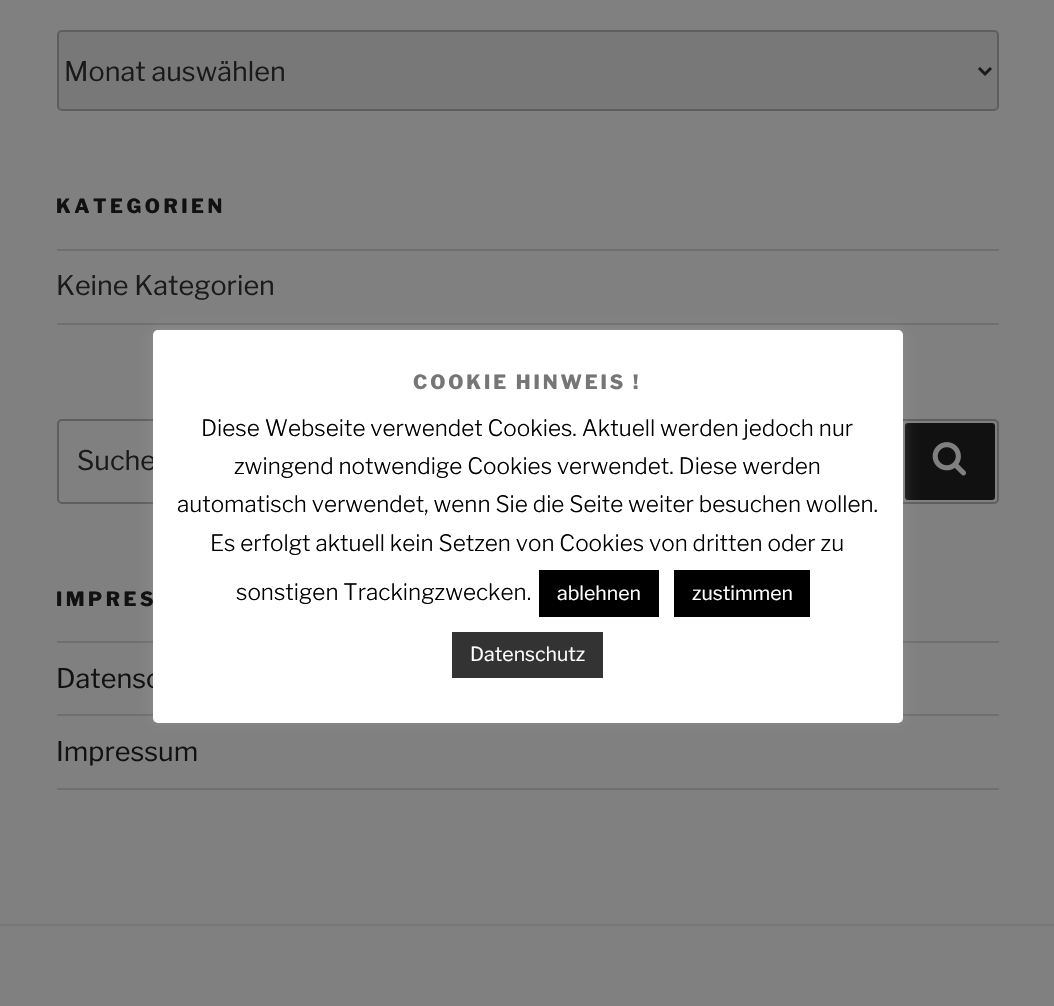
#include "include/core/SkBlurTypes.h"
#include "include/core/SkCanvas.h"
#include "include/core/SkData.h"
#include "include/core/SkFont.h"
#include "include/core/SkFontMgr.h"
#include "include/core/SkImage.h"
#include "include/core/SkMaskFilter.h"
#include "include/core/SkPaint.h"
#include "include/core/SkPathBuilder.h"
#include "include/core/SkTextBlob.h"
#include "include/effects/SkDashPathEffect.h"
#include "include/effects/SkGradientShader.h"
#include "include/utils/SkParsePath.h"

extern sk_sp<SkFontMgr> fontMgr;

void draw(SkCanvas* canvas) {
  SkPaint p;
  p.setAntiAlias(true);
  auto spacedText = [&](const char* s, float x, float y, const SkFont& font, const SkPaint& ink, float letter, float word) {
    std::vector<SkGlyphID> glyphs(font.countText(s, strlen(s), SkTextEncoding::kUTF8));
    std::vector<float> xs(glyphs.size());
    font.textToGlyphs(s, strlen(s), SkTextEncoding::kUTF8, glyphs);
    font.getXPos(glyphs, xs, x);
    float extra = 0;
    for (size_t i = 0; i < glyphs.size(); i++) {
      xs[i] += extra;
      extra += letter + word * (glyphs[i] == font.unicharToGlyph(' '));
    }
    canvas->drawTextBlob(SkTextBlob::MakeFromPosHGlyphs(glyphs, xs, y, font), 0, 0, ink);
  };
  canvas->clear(SkColorSetRGB(128, 128, 128));
  p.setColor(SkColorSetRGB(120, 120, 120));
  canvas->drawRoundRect(SkRect::MakeLTRB(58, 31, 998, 110), 4, 4, p);
  p.setStyle(SkPaint::kStroke_Style);
  p.setStrokeWidth(2);
  p.setColor(SkColorSetRGB(94, 94, 94));
  canvas->drawRoundRect(SkRect::MakeLTRB(58, 31, 998, 110), 4, 4, p);
  p.setStrokeWidth(3);
  p.setColor(SkColorSetRGB(26, 26, 26));
  canvas->drawPath(SkPathBuilder().moveTo(979, 68).lineTo(985, 74).lineTo(991, 68).detach(), p);
  p.setStyle(SkPaint::kFill_Style);
  p.setColor(SkColorSetRGB(111, 111, 111));
  canvas->drawRect(SkRect::MakeLTRB(57, 249, 999, 251), p);
  canvas->drawRect(SkRect::MakeLTRB(57, 323, 999, 325), p);
  p.setStyle(SkPaint::kStroke_Style);
  p.setStrokeWidth(2);
  p.setColor(SkColorSetRGB(94, 94, 94));
  canvas->drawRoundRect(SkRect::MakeLTRB(58, 420, 998, 503), 4, 4, p);
  p.setStyle(SkPaint::kFill_Style);
  p.setColor(SkColorSetRGB(17, 17, 17));
  canvas->drawRoundRect(SkRect::MakeLTRB(905, 423, 995, 500), 3, 3, p);
  canvas->drawImageRect(SkImages::DeferredFromEncodedData(SkData::MakeFromFileName("images/1.png")), SkRect::MakeLTRB(932, 442, 966, 476), SkSamplingOptions());
  p.setColor(SkColorSetRGB(111, 111, 111));
  canvas->drawRect(SkRect::MakeLTRB(57, 641, 999, 643), p);
  canvas->drawRect(SkRect::MakeLTRB(57, 714, 999, 716), p);
  canvas->drawRect(SkRect::MakeLTRB(57, 788, 999, 790), p);
  p.setColor(SkColorSetRGB(119, 119, 119));
  canvas->drawRect(SkRect::MakeLTRB(0, 924, 1054, 926), p);
  p.setColor(SkColorSetARGB(77, 172, 171, 171));
  p.setMaskFilter(SkMaskFilter::MakeBlur(kNormal_SkBlurStyle, 7.5f));
  canvas->drawRoundRect(SkRect::MakeLTRB(153, 329, 903, 722), 5, 5, p);
  p.setMaskFilter(nullptr);
  SkFont font1(fontMgr->matchFamilyStyle("Libre Franklin", SkFontStyle(100, SkFontStyle::kNormal_Width, SkFontStyle::kUpright_Slant)), 27);
  font1.setSubpixel(true);
  p.setColor(SkColorSetRGB(26, 26, 26));
  canvas->drawString("Monat auswählen", 64, 81, font1, p);
  SkFont font2(fontMgr->matchFamilyStyle("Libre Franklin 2", SkFontStyle(100, SkFontStyle::kNormal_Width, SkFontStyle::kUpright_Slant)), 19.5f);
  font2.setSubpixel(true);
  p.setColor(SkColorSetRGB(17, 17, 17));
  spacedText("KATEGORIEN", 56, 213, font2, p, 3.5f, 0);
  p.setColor(SkColorSetRGB(26, 26, 26));
  canvas->drawString("Keine Kategorien", 56, 295, font1, p);
  canvas->drawString("Suche", 77, 470, font1, p);
  p.setColor(SkColorSetRGB(17, 17, 17));
  spacedText("IMPRES", 56, 606, font2, p, 3.5f, 0);
  canvas->drawString("Datensc", 56, 688, font1, p);
  canvas->drawString("Impressum", 56, 761, font1, p);
  p.setColor(SK_ColorWHITE);
  canvas->drawRoundRect(SkRect::MakeLTRB(153, 330, 903, 723), 5, 5, p);
  p.setColor(SkColorSetRGB(118, 118, 118));
  spacedText("COOKIE HINWEIS !", 413, 389, font2, p, 2.9f, 0);
  SkFont font3(fontMgr->matchFamilyStyle("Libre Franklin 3", SkFontStyle(100, SkFontStyle::kNormal_Width, SkFontStyle::kUpright_Slant)), 22.5f);
  font3.setSubpixel(true);
  p.setColor(SK_ColorBLACK);
  canvas->drawString("Diese Webseite verwendet Cookies. Aktuell werden jedoch nur", 201, 436, font3, p);
  canvas->drawString("zwingend notwendige Cookies verwendet. Diese werden", 234, 474, font3, p);
  canvas->drawString("automatisch verwendet, wenn Sie die Seite weiter besuchen wollen.", 177, 512, font3, p);
  canvas->drawString("Es erfolgt aktuell kein Setzen von Cookies von dritten oder zu", 210, 551, font3, p);
  canvas->drawString("sonstigen Trackingzwecken.", 236, 600, font3, p);
  canvas->drawRect(SkRect::MakeLTRB(539, 570, 659, 617), p);
  SkFont font4(fontMgr->matchFamilyStyle("Libre Franklin", SkFontStyle(100, SkFontStyle::kNormal_Width, SkFontStyle::kUpright_Slant)), 19.5f);
  font4.setSubpixel(true);
  p.setColor(SK_ColorWHITE);
  canvas->drawString("ablehnen", 557, 600, font4, p);
  p.setColor(SK_ColorBLACK);
  canvas->drawRect(SkRect::MakeLTRB(674, 570, 810, 617), p);
  p.setColor(SK_ColorWHITE);
  canvas->drawString("zustimmen", 692, 600, font4, p);
  p.setColor(SkColorSetRGB(51, 51, 51));
  canvas->drawRect(SkRect::MakeLTRB(452, 632, 603, 678), p);
  p.setColor(SK_ColorWHITE);
  canvas->drawString("Datenschutz", 470, 661, font4, p);
}
